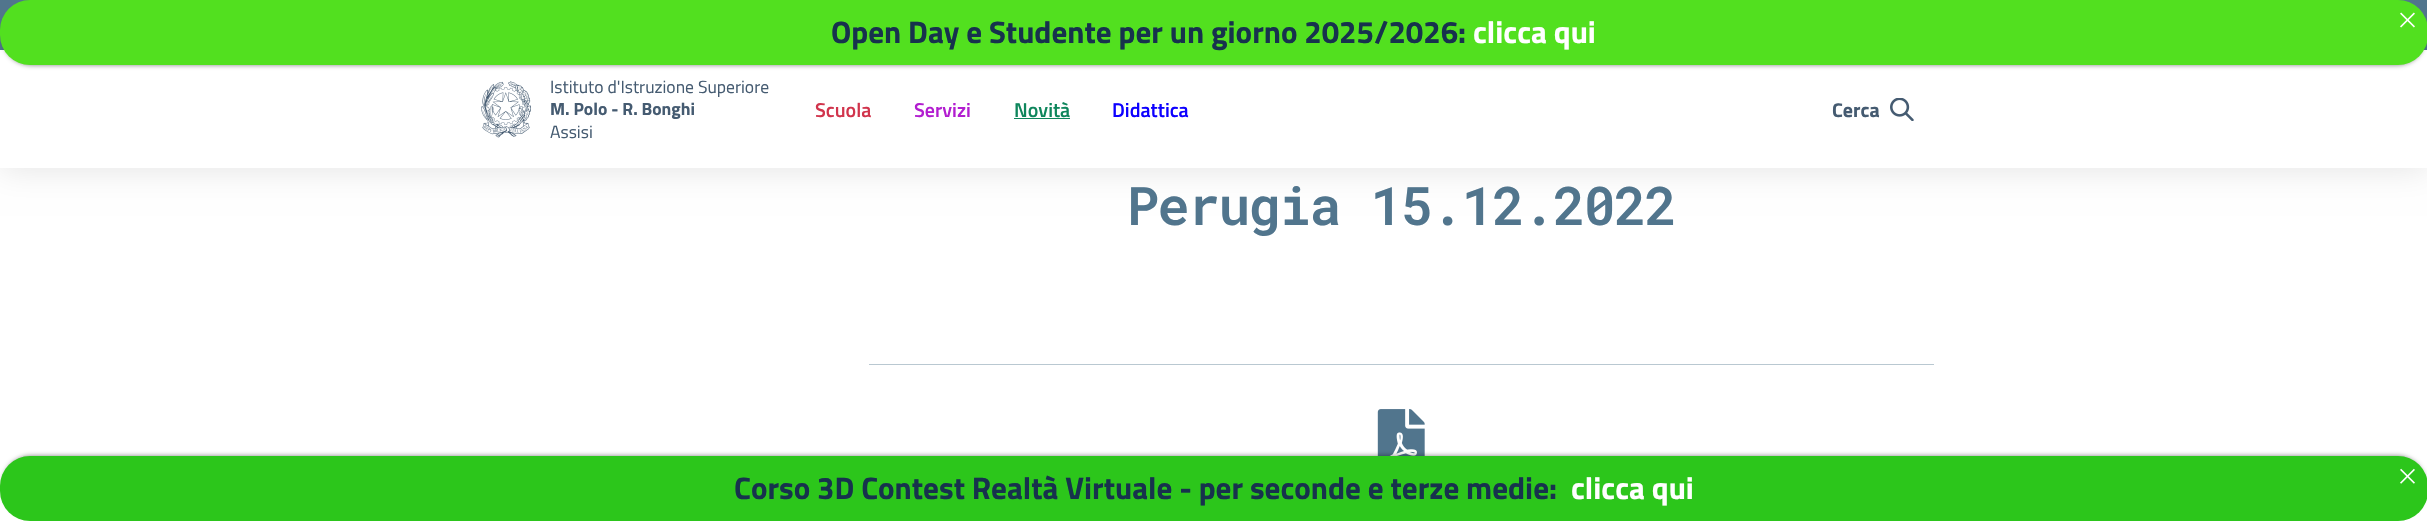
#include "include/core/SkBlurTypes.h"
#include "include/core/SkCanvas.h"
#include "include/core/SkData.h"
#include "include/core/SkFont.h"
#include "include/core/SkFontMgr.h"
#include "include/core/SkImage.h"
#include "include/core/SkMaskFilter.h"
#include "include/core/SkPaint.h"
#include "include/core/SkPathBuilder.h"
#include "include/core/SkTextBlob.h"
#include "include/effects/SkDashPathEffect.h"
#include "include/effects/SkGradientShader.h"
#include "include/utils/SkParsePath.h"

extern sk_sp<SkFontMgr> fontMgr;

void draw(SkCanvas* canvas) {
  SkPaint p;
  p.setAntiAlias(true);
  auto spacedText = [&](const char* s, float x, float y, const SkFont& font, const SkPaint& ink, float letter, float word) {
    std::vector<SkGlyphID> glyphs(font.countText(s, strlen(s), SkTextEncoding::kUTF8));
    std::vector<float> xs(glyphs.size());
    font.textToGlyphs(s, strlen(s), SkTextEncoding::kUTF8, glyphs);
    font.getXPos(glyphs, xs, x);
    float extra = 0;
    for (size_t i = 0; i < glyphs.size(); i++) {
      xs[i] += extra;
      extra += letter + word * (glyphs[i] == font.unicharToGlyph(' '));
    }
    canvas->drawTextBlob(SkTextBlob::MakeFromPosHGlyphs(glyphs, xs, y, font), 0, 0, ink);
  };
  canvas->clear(SK_ColorWHITE);
  p.setColor(SkColorSetARGB(26, 0, 0, 0));
  p.setMaskFilter(SkMaskFilter::MakeBlur(kNormal_SkBlurStyle, 15.5f));
  canvas->drawRect(SkRect::MakeLTRB(0, 3, 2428, 170), p);
  p.setMaskFilter(nullptr);
  p.setColor(SK_ColorWHITE);
  canvas->drawRect(SkRect::MakeLTRB(0, 50, 2427, 168), p);
  p.setColor(SkColorSetRGB(81, 117, 141));
  canvas->drawRect(SkRect::MakeLTRB(0, 0, 2427, 50), p);
  p.setColor(SkColorSetARGB(128, 0, 0, 0));
  p.setMaskFilter(SkMaskFilter::MakeBlur(kNormal_SkBlurStyle, 2.5f));
  canvas->drawRoundRect(SkRect::MakeLTRB(3, 5, 2425, 65), 28, 28, p);
  p.setMaskFilter(nullptr);
  p.setColor(SkColorSetRGB(82, 224, 31));
  canvas->drawRoundRect(SkRect::MakeLTRB(0, 0, 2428, 65), 30, 30, p);
  canvas->drawImageRect(SkImages::DeferredFromEncodedData(SkData::MakeFromFileName("images/1.png")), SkRect::MakeLTRB(2400, 12, 2415, 28), SkSamplingOptions());
  canvas->drawImageRect(SkImages::DeferredFromEncodedData(SkData::MakeFromFileName("images/2.png")), SkRect::MakeLTRB(481, 81, 531, 138), SkSamplingOptions());
  p.setColor(SkColorSetRGB(14, 134, 92));
  canvas->drawRect(SkRect::MakeLTRB(1014, 118, 1070, 119), p);
  canvas->drawImageRect(SkImages::DeferredFromEncodedData(SkData::MakeFromFileName("images/3.png")), SkRect::MakeLTRB(1890, 98, 1914, 121), SkSamplingOptions());
  p.setColor(SkColorSetRGB(185, 200, 209));
  canvas->drawRect(SkRect::MakeLTRB(869, 364, 1934, 365), p);
  canvas->drawImageRect(SkImages::DeferredFromEncodedData(SkData::MakeFromFileName("images/4.png")), SkRect::MakeLTRB(1377, 409, 1425, 456), SkSamplingOptions());
  p.setColor(SkColorSetARGB(128, 0, 0, 0));
  p.setMaskFilter(SkMaskFilter::MakeBlur(kNormal_SkBlurStyle, 2.5f));
  canvas->drawRoundRect(SkRect::MakeLTRB(3, 456, 2425, 516), 28, 28, p);
  p.setMaskFilter(nullptr);
  p.setColor(SkColorSetRGB(44, 198, 27));
  canvas->drawRoundRect(SkRect::MakeLTRB(0, 456, 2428, 521), 30, 30, p);
  canvas->drawImageRect(SkImages::DeferredFromEncodedData(SkData::MakeFromFileName("images/5.png")), SkRect::MakeLTRB(2400, 468, 2415, 484), SkSamplingOptions());
  SkFont font1(fontMgr->matchFamilyStyle("Titillium Web", SkFontStyle::Bold()), 31.1f);
  font1.setSubpixel(true);
  p.setColor(SkColorSetRGB(23, 50, 77));
  canvas->drawString("Open Day e Studente per un giorno 2025/2026:", 831, 43, font1, p);
  p.setColor(SK_ColorWHITE);
  canvas->drawString("clicca qui", 1473, 43, font1, p);
  SkFont font2(fontMgr->matchFamilyStyle("Titillium Web", SkFontStyle::Normal()), 17.6f);
  font2.setSubpixel(true);
  p.setColor(SkColorSetRGB(69, 91, 113));
  canvas->drawString("Istituto d'Istruzione Superiore", 550, 93, font2, p);
  SkFont font3(fontMgr->matchFamilyStyle("Titillium Web", SkFontStyle::Bold()), 17.6f);
  font3.setSubpixel(true);
  canvas->drawString("M. Polo - R. Bonghi", 550, 115, font3, p);
  canvas->drawString("Assisi", 550, 138, font2, p);
  SkFont font4(fontMgr->matchFamilyStyle("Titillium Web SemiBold", SkFontStyle(600, SkFontStyle::kNormal_Width, SkFontStyle::kUpright_Slant)), 20);
  font4.setSubpixel(true);
  p.setColor(SkColorSetRGB(209, 52, 76));
  canvas->drawString("Scuola", 815, 117, font4, p);
  p.setColor(SkColorSetRGB(178, 29, 208));
  canvas->drawString("Servizi", 914, 117, font4, p);
  p.setColor(SkColorSetRGB(14, 134, 92));
  canvas->drawString("Novità", 1014, 117, font4, p);
  p.setColor(SkColorSetRGB(13, 0, 255));
  canvas->drawString("Didattica", 1112, 117, font4, p);
  SkFont font5(fontMgr->matchFamilyStyle("Titillium Web", SkFontStyle::Bold()), 20);
  font5.setSubpixel(true);
  p.setColor(SkColorSetRGB(69, 91, 113));
  canvas->drawString("Cerca", 1832, 117, font5, p);
  SkFont font6(fontMgr->matchFamilyStyle("Roboto Mono", SkFontStyle(600, SkFontStyle::kNormal_Width, SkFontStyle::kUpright_Slant)), 53.25f);
  font6.setSubpixel(true);
  p.setColor(SkColorSetRGB(81, 117, 141));
  spacedText("Perugia 15.12.2022", 1127, 225, font6, p, -1.5f, 0);
  p.setColor(SkColorSetRGB(23, 50, 77));
  canvas->drawString("Corso 3D Contest Realtà Virtuale - per seconde e terze medie:", 734, 499, font1, p);
  p.setColor(SK_ColorWHITE);
  canvas->drawString("clicca qui", 1571, 499, font1, p);
}
